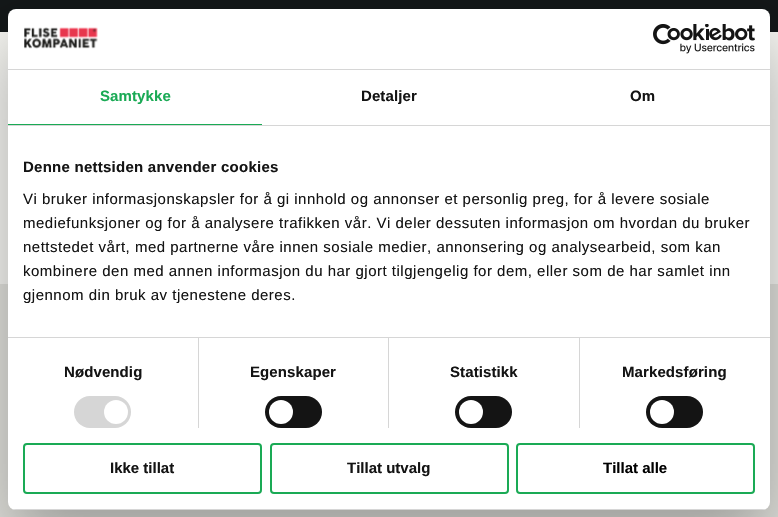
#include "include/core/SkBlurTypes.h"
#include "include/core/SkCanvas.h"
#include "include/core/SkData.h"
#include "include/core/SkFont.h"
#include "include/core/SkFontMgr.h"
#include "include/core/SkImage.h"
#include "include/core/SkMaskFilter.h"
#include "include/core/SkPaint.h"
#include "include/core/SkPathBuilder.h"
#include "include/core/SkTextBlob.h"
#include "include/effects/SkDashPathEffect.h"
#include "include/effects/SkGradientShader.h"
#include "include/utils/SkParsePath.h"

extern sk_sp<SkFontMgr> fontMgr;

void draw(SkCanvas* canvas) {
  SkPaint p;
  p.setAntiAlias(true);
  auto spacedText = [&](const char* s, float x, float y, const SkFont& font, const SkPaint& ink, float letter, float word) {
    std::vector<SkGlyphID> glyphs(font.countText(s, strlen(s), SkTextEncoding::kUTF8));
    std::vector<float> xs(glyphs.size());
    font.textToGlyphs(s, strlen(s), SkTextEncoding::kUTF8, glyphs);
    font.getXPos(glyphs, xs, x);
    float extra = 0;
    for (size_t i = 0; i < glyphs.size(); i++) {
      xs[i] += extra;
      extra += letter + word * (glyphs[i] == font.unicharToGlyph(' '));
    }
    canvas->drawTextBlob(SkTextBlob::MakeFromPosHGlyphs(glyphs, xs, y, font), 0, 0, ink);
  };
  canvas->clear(SkColorSetRGB(245, 245, 241));
  p.setColor(SkColorSetRGB(19, 23, 24));
  canvas->drawRect(SkRect::MakeLTRB(0, 0, 778, 32), p);
  p.setColor(SkColorSetRGB(225, 225, 220));
  canvas->drawRect(SkRect::MakeLTRB(0, 284, 778, 517), p);
  p.setColor(SkColorSetARGB(77, 0, 0, 0));
  p.setMaskFilter(SkMaskFilter::MakeBlur(kNormal_SkBlurStyle, 34));
  canvas->drawRoundRect(SkRect::MakeLTRB(8, 41, 770, 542), 8, 8, p);
  p.setMaskFilter(nullptr);
  p.setColor(SK_ColorWHITE);
  canvas->drawRoundRect(SkRect::MakeLTRB(8, 9, 770, 510), 8, 8, p);
  p.setColor(SkColorSetRGB(214, 214, 214));
  canvas->drawRect(SkRect::MakeLTRB(8, 69, 770, 70), p);
  canvas->drawImageRect(SkImages::DeferredFromEncodedData(SkData::MakeFromFileName("images/1.png")), SkRect::MakeLTRB(24, 27, 98, 49), SkSamplingOptions());
  canvas->drawImageRect(SkImages::DeferredFromEncodedData(SkData::MakeFromFileName("images/2.png")), SkRect::MakeLTRB(653, 24, 755, 54), SkSamplingOptions());
  canvas->drawRect(SkRect::MakeLTRB(8, 125, 770, 126), p);
  p.setColor(SkColorSetRGB(26, 170, 85));
  canvas->drawRect(SkRect::MakeLTRB(8, 124, 262, 125), p);
  p.setColor(SkColorSetRGB(214, 214, 214));
  canvas->drawRect(SkRect::MakeLTRB(8, 337, 770, 338), p);
  canvas->drawRect(SkRect::MakeLTRB(198, 338, 199, 428), p);
  canvas->drawRoundRect(SkRect::MakeLTRB(74, 396, 131, 428), 16, 16, p);
  p.setColor(SK_ColorWHITE);
  canvas->drawCircle(116, 412, 12, p);
  p.setColor(SkColorSetRGB(214, 214, 214));
  canvas->drawRect(SkRect::MakeLTRB(388, 338, 389, 428), p);
  p.setColor(SkColorSetRGB(20, 20, 20));
  canvas->drawRoundRect(SkRect::MakeLTRB(265, 396, 322, 428), 16, 16, p);
  p.setColor(SK_ColorWHITE);
  canvas->drawCircle(281, 412, 12, p);
  p.setColor(SkColorSetRGB(214, 214, 214));
  canvas->drawRect(SkRect::MakeLTRB(579, 338, 580, 428), p);
  p.setColor(SkColorSetRGB(20, 20, 20));
  canvas->drawRoundRect(SkRect::MakeLTRB(455, 396, 512, 428), 16, 16, p);
  p.setColor(SK_ColorWHITE);
  canvas->drawCircle(471, 412, 12, p);
  p.setColor(SkColorSetRGB(20, 20, 20));
  canvas->drawRoundRect(SkRect::MakeLTRB(646, 396, 703, 428), 16, 16, p);
  p.setColor(SK_ColorWHITE);
  canvas->drawCircle(662, 412, 12, p);
  canvas->save();
  canvas->clipPath(SkPathBuilder().moveTo(16, 9).lineTo(762, 9).cubicTo(766.5f, 9, 770, 12.5f, 770, 17).lineTo(770, 502).cubicTo(770, 506.5f, 766.5f, 510, 762, 510).lineTo(16, 510).cubicTo(11.5f, 510, 8, 506.5f, 8, 502).lineTo(8, 17).cubicTo(8, 12.5f, 11.5f, 9, 16, 9).close().detach(), true);
  p.setColor(SkColorSetRGB(214, 214, 214));
  canvas->drawRect(SkRect::MakeLTRB(8, 509, 770, 510), p);
  canvas->restore();
  p.setStyle(SkPaint::kStroke_Style);
  p.setStrokeWidth(2);
  p.setColor(SkColorSetRGB(26, 170, 85));
  canvas->drawRoundRect(SkRect::MakeLTRB(24, 444, 261, 493), 3, 3, p);
  canvas->drawRoundRect(SkRect::MakeLTRB(271, 444, 508, 493), 3, 3, p);
  canvas->drawRoundRect(SkRect::MakeLTRB(517, 444, 754, 493), 3, 3, p);
  SkFont font1(fontMgr->matchFamilyStyle("Liberation Sans", SkFontStyle::Bold()), 15);
  font1.setSubpixel(true);
  p.setStyle(SkPaint::kFill_Style);
  spacedText("Samtykke", 100, 101, font1, p, 0.1f, 0);
  p.setColor(SkColorSetRGB(20, 20, 20));
  spacedText("Detaljer", 361, 101, font1, p, 0.1f, 0);
  spacedText("Om", 630, 101, font1, p, 0.1f, 0);
  spacedText("Denne nettsiden anvender cookies", 23, 172, font1, p, 0.25f, 0);
  SkFont font2(fontMgr->matchFamilyStyle("Liberation Sans", SkFontStyle::Normal()), 15);
  font2.setSubpixel(true);
  spacedText("Vi bruker informasjonskapsler for å gi innhold og annonser et personlig preg, for å levere sosiale", 23, 204, font2, p, 0.5f, 0);
  spacedText("mediefunksjoner og for å analysere trafikken vår. Vi deler dessuten informasjon om hvordan du bruker", 23, 228, font2, p, 0.5f, 0);
  spacedText("nettstedet vårt, med partnerne våre innen sosiale medier, annonsering og analysearbeid, som kan", 23, 252, font2, p, 0.5f, 0);
  spacedText("kombinere den med annen informasjon du har gjort tilgjengelig for dem, eller som de har samlet inn", 23, 276, font2, p, 0.5f, 0);
  spacedText("gjennom din bruk av tjenestene deres.", 23, 300, font2, p, 0.5f, 0);
  spacedText("Nødvendig", 64, 377, font1, p, 0.1f, 0);
  spacedText("Egenskaper", 250, 377, font1, p, 0.1f, 0);
  spacedText("Statistikk", 450, 377, font1, p, 0.1f, 0);
  spacedText("Markedsføring", 622, 377, font1, p, 0.1f, 0);
  canvas->drawString("Ikke tillat", 110, 473, font1, p);
  canvas->drawString("Tillat utvalg", 347, 473, font1, p);
  p.setColor(SK_ColorBLACK);
  canvas->drawString("Tillat alle", 603, 473, font1, p);
}
